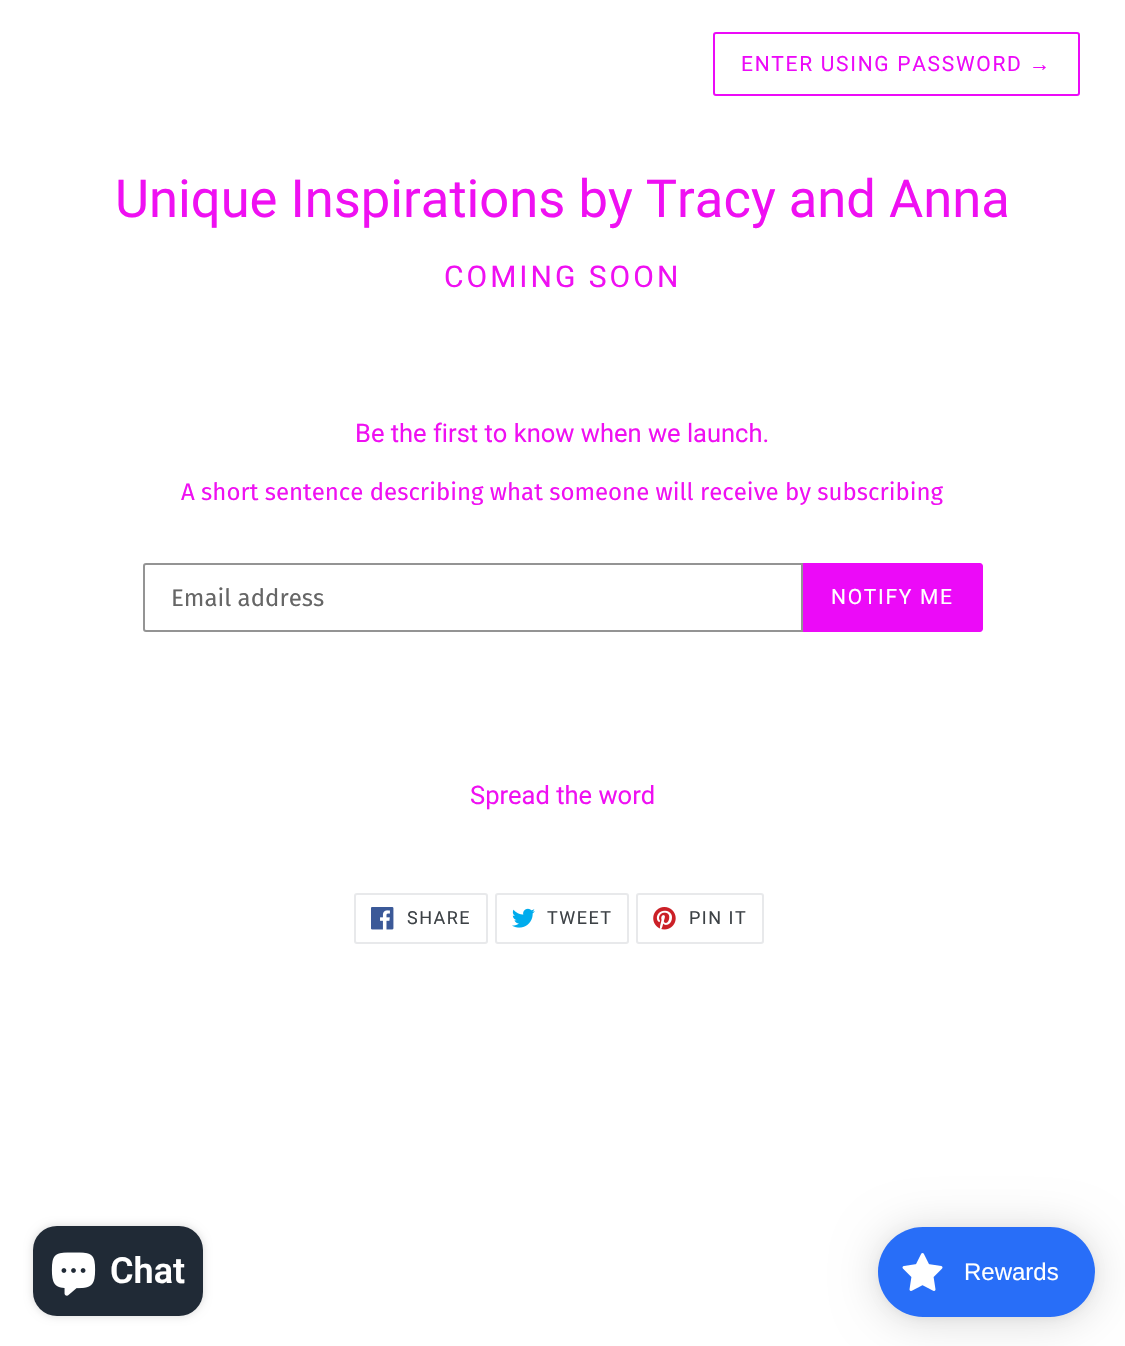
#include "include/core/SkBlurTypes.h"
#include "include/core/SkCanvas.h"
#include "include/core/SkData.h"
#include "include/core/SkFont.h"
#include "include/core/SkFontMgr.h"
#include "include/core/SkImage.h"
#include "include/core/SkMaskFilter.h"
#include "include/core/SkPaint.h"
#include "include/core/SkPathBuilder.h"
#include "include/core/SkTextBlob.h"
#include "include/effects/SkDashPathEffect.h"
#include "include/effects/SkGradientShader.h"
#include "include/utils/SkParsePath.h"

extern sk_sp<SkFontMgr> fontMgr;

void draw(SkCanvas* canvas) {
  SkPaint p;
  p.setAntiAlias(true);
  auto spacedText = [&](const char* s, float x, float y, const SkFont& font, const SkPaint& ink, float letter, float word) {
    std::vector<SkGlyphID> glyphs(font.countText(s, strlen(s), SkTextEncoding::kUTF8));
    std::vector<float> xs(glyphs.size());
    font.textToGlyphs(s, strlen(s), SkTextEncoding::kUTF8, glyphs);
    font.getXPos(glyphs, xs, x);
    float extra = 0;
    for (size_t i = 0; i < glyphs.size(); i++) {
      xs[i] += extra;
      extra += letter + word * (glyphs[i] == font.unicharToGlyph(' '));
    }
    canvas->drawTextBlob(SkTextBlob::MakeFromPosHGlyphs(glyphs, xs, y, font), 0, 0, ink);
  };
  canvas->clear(SK_ColorWHITE);
  p.setStyle(SkPaint::kStroke_Style);
  p.setStrokeWidth(2);
  p.setColor(SkColorSetRGB(236, 10, 248));
  canvas->drawRoundRect(SkRect::MakeLTRB(714, 33, 1079, 95), 2, 2, p);
  p.setColor(SkColorSetRGB(148, 148, 148));
  canvas->drawPath(SkPathBuilder().moveTo(146, 564).lineTo(802, 564).lineTo(802, 631).lineTo(146, 631).cubicTo(145, 631, 144, 630, 144, 629).lineTo(144, 566).cubicTo(144, 565, 145, 564, 146, 564).close().detach(), p);
  p.setStyle(SkPaint::kFill_Style);
  p.setColor(SkColorSetRGB(236, 10, 248));
  canvas->drawPath(SkPathBuilder().moveTo(803, 563).lineTo(980, 563).cubicTo(981.5f, 563, 983, 564.5f, 983, 566).lineTo(983, 629).cubicTo(983, 630.5f, 981.5f, 632, 980, 632).lineTo(803, 632).close().detach(), p);
  p.setStyle(SkPaint::kStroke_Style);
  p.setColor(SkColorSetRGB(232, 233, 235));
  canvas->drawRoundRect(SkRect::MakeLTRB(355, 894, 487, 943), 2, 2, p);
  canvas->drawImageRect(SkImages::DeferredFromEncodedData(SkData::MakeFromFileName("images/1.png")), SkRect::MakeLTRB(371, 907, 394, 930), SkSamplingOptions());
  canvas->drawRoundRect(SkRect::MakeLTRB(496, 894, 628, 943), 2, 2, p);
  canvas->drawImageRect(SkImages::DeferredFromEncodedData(SkData::MakeFromFileName("images/2.png")), SkRect::MakeLTRB(512, 908, 535, 928), SkSamplingOptions());
  canvas->drawRoundRect(SkRect::MakeLTRB(637, 894, 763, 943), 2, 2, p);
  canvas->drawImageRect(SkImages::DeferredFromEncodedData(SkData::MakeFromFileName("images/3.png")), SkRect::MakeLTRB(653, 907, 676, 930), SkSamplingOptions());
  p.setStyle(SkPaint::kFill_Style);
  p.setColor(SkColorSetARGB(38, 0, 0, 0));
  p.setMaskFilter(SkMaskFilter::MakeBlur(kNormal_SkBlurStyle, 4));
  canvas->drawRoundRect(SkRect::MakeLTRB(33, 1226, 203, 1316), 24, 24, p);
  p.setMaskFilter(nullptr);
  p.setColor(SkColorSetRGB(32, 42, 54));
  canvas->drawRoundRect(SkRect::MakeLTRB(33, 1226, 203, 1316), 24, 24, p);
  canvas->drawImageRect(SkImages::DeferredFromEncodedData(SkData::MakeFromFileName("images/4.png")), SkRect::MakeLTRB(51, 1252, 96, 1296), SkSamplingOptions());
  p.setColor(SkColorSetARGB(38, 0, 0, 0));
  p.setMaskFilter(SkMaskFilter::MakeBlur(kNormal_SkBlurStyle, 22.5f));
  canvas->drawRoundRect(SkRect::MakeLTRB(878, 1230, 1095, 1320), 45, 45, p);
  p.setMaskFilter(nullptr);
  p.setColor(SkColorSetARGB(13, 0, 0, 0));
  p.setMaskFilter(SkMaskFilter::MakeBlur(kNormal_SkBlurStyle, 4.5f));
  canvas->drawRoundRect(SkRect::MakeLTRB(878, 1229, 1095, 1319), 45, 45, p);
  p.setMaskFilter(nullptr);
  p.setColor(SkColorSetRGB(40, 110, 248));
  canvas->drawRoundRect(SkRect::MakeLTRB(878, 1227, 1095, 1317), 45, 45, p);
  canvas->drawImageRect(SkImages::DeferredFromEncodedData(SkData::MakeFromFileName("images/5.png")), SkRect::MakeLTRB(902, 1253, 943, 1291), SkSamplingOptions());
  SkFont font1(fontMgr->matchFamilyStyle("Roboto", SkFontStyle::Normal()), 21);
  font1.setSubpixel(true);
  p.setColor(SkColorSetRGB(236, 10, 248));
  spacedText("ENTER USING PASSWORD", 741, 71, font1, p, 1.7f, 0);
  SkFont font2(fontMgr->matchFamilyStyle("Liberation Sans", SkFontStyle::Normal()), 21);
  font2.setSubpixel(true);
  spacedText("→", 1029, 71, font2, p, 1.7f, 0);
  SkFont font3(fontMgr->matchFamilyStyle("Roboto", SkFontStyle::Normal()), 52.5f);
  font3.setSubpixel(true);
  p.setColor(SkColorSetRGB(239, 16, 242));
  canvas->drawString("Unique Inspirations by Tracy and Anna", 115, 217, font3, p);
  SkFont font4(fontMgr->matchFamilyStyle("Roboto", SkFontStyle::Normal()), 30);
  font4.setSubpixel(true);
  spacedText("COMING SOON", 444, 287, font4, p, 3, 0);
  SkFont font5(fontMgr->matchFamilyStyle("Roboto", SkFontStyle::Normal()), 25.5f);
  font5.setSubpixel(true);
  canvas->drawString("Be the first to know when we launch.", 355, 442, font5, p);
  SkFont font6(fontMgr->matchFamilyStyle("Fira Sans", SkFontStyle::Normal()), 24);
  font6.setSubpixel(true);
  canvas->drawString("A short sentence describing what someone will receive by subscribing", 181, 500, font6, p);
  p.setColor(SkColorSetRGB(102, 102, 102));
  canvas->drawString("Email address", 171, 606, font6, p);
  p.setColor(SK_ColorWHITE);
  spacedText("NOTIFY ME", 831, 604, font1, p, 1.7f, 0);
  p.setColor(SkColorSetRGB(239, 16, 242));
  canvas->drawString("Spread the word", 470, 804, font5, p);
  SkFont font7(fontMgr->matchFamilyStyle("Roboto", SkFontStyle::Normal()), 18);
  font7.setSubpixel(true);
  p.setColor(SkColorSetRGB(61, 66, 70));
  spacedText("SHARE", 407, 924, font7, p, 1.5f, 0);
  spacedText("TWEET", 547, 924, font7, p, 1.5f, 0);
  spacedText("PIN IT", 689, 924, font7, p, 1.5f, 0);
  SkFont font8(fontMgr->matchFamilyStyle("Roboto", SkFontStyle(600, SkFontStyle::kNormal_Width, SkFontStyle::kUpright_Slant)), 36);
  font8.setSubpixel(true);
  p.setColor(SK_ColorWHITE);
  canvas->drawString("Chat", 110, 1283, font8, p);
  SkFont font9(fontMgr->matchFamilyStyle("Liberation Sans", SkFontStyle::Normal()), 24);
  font9.setSubpixel(true);
  canvas->drawString("Rewards", 964, 1280, font9, p);
}
